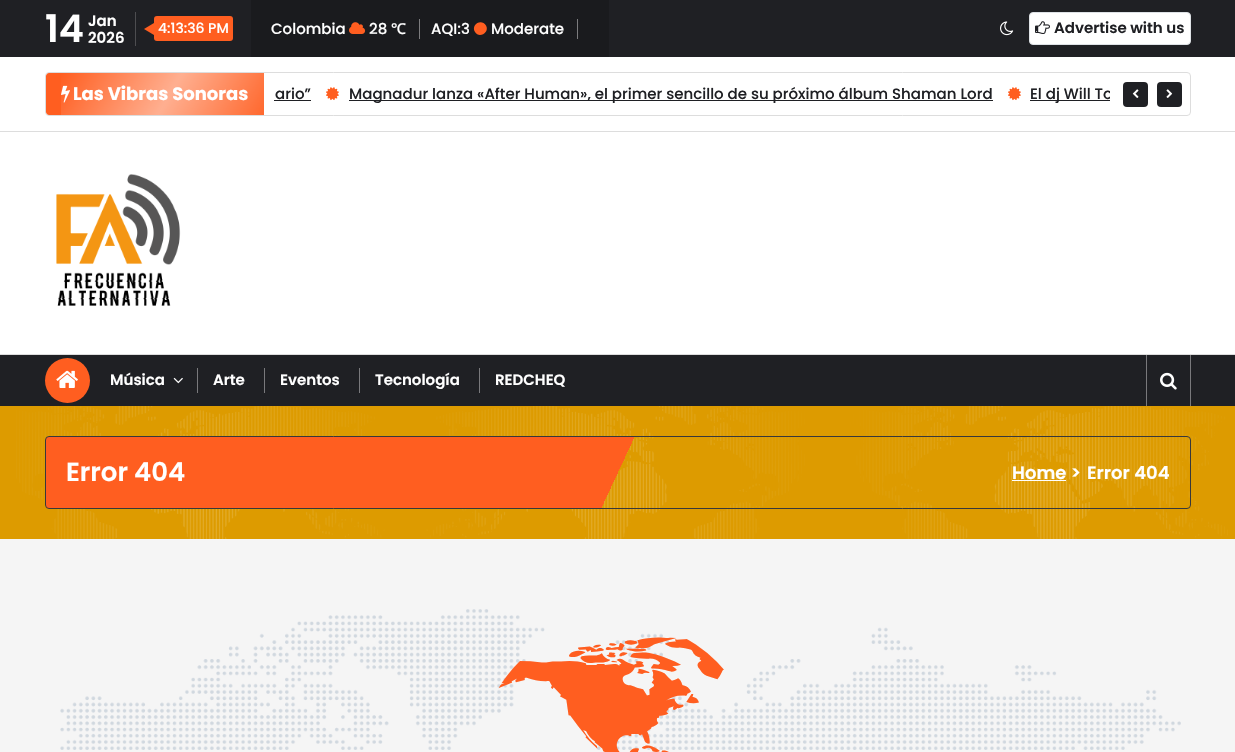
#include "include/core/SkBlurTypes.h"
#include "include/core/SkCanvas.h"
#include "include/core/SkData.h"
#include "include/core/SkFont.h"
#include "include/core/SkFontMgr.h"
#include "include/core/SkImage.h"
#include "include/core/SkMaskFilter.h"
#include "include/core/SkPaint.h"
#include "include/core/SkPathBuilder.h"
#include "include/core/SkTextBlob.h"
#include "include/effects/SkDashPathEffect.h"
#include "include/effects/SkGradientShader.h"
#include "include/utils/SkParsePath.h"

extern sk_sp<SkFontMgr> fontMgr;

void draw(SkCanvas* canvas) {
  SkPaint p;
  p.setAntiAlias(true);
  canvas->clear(SkColorSetRGB(245, 245, 245));
  p.setColor(SkColorSetRGB(31, 32, 36));
  canvas->drawRect(SkRect::MakeLTRB(0, 0, 1235, 57), p);
  p.setColor(SkColorSetRGB(77, 77, 80));
  canvas->drawRect(SkRect::MakeLTRB(135, 12, 136, 46), p);
  p.setColor(SkColorSetRGB(255, 94, 32));
  canvas->drawRoundRect(SkRect::MakeLTRB(154, 16, 233, 41), 3, 3, p);
  canvas->drawPath(SkPathBuilder().moveTo(154, 23).lineTo(154, 35).lineTo(144, 29).close().detach(), p);
  p.setColor(SkColorSetRGB(26, 27, 30));
  canvas->drawRect(SkRect::MakeLTRB(251, 0, 609, 57), p);
  canvas->drawImageRect(SkImages::DeferredFromEncodedData(SkData::MakeFromFileName("images/1.png")), SkRect::MakeLTRB(349, 22, 366, 34), SkSamplingOptions());
  p.setColor(SkColorSetRGB(124, 124, 126));
  canvas->drawRect(SkRect::MakeLTRB(419, 19, 420, 39), p);
  p.setColor(SkColorSetRGB(255, 94, 32));
  canvas->drawPath(SkPathBuilder().moveTo(486, 25.5f).cubicTo(490, 32.5f, 479, 39, 475, 32).cubicTo(470.5f, 24.5f, 481.5f, 18, 486, 25.5f).close().detach(), p);
  p.setColor(SkColorSetRGB(124, 124, 126));
  canvas->drawRect(SkRect::MakeLTRB(577, 19, 578, 39), p);
  canvas->drawImageRect(SkImages::DeferredFromEncodedData(SkData::MakeFromFileName("images/2.png")), SkRect::MakeLTRB(1000, 21, 1014, 36), SkSamplingOptions());
  p.setColor(SK_ColorWHITE);
  canvas->drawRoundRect(SkRect::MakeLTRB(1029.5f, 12.5f, 1190.5f, 44.5f), 3.5f, 3.5f, p);
  p.setStyle(SkPaint::kStroke_Style);
  p.setStrokeWidth(1);
  p.setColor(SkColorSetRGB(222, 226, 230));
  canvas->drawRoundRect(SkRect::MakeLTRB(1029.5f, 12.5f, 1190.5f, 44.5f), 3.5f, 3.5f, p);
  canvas->drawImageRect(SkImages::DeferredFromEncodedData(SkData::MakeFromFileName("images/3.png")), SkRect::MakeLTRB(1035, 21, 1050, 34), SkSamplingOptions());
  p.setStyle(SkPaint::kFill_Style);
  p.setColor(SK_ColorWHITE);
  canvas->drawRect(SkRect::MakeLTRB(0, 57, 1235, 131), p);
  p.setStyle(SkPaint::kStroke_Style);
  p.setColor(SkColorSetRGB(221, 221, 221));
  canvas->drawRoundRect(SkRect::MakeLTRB(45.5f, 72.5f, 1190.5f, 115.5f), 3.5f, 3.5f, p);
  p.setStyle(SkPaint::kFill_Style);
  p.setColor(SkColorSetRGB(255, 94, 32));
  canvas->drawPath(SkPathBuilder().moveTo(49, 73).lineTo(264, 73).lineTo(264, 115).lineTo(49, 115).cubicTo(47.5f, 115, 46, 113.5f, 46, 112).lineTo(46, 76).cubicTo(46, 74.5f, 47.5f, 73, 49, 73).close().detach(), p);
  canvas->drawImageRect(SkImages::DeferredFromEncodedData(SkData::MakeFromFileName("images/4.png")), SkRect::MakeLTRB(61, 85, 70, 103), SkSamplingOptions());
  p.setColor(SkColorSetRGB(31, 32, 36));
  canvas->drawRect(SkRect::MakeLTRB(274, 100, 311, 101), p);
  canvas->drawImageRect(SkImages::DeferredFromEncodedData(SkData::MakeFromFileName("images/5.png")), SkRect::MakeLTRB(326, 87, 339, 101), SkSamplingOptions());
  canvas->drawRect(SkRect::MakeLTRB(349, 100, 993, 101), p);
  canvas->drawImageRect(SkImages::DeferredFromEncodedData(SkData::MakeFromFileName("images/5.png")), SkRect::MakeLTRB(1008, 87, 1021, 101), SkSamplingOptions());
  canvas->drawRect(SkRect::MakeLTRB(1030, 100, 1110, 101), p);
  canvas->drawRoundRect(SkRect::MakeLTRB(1123, 82, 1148, 107), 4, 4, p);
  canvas->drawImageRect(SkImages::DeferredFromEncodedData(SkData::MakeFromFileName("images/6.png")), SkRect::MakeLTRB(1132, 89, 1139, 98), SkSamplingOptions());
  canvas->drawRoundRect(SkRect::MakeLTRB(1157, 82, 1182, 107), 4, 4, p);
  canvas->drawImageRect(SkImages::DeferredFromEncodedData(SkData::MakeFromFileName("images/7.png")), SkRect::MakeLTRB(1166, 89, 1173, 98), SkSamplingOptions());
  p.setColor(SK_ColorWHITE);
  canvas->drawRect(SkRect::MakeLTRB(0, 132, 1235, 354), p);
  p.setColor(SkColorSetRGB(221, 221, 221));
  canvas->drawRect(SkRect::MakeLTRB(0, 131, 1235, 132), p);
  canvas->drawRect(SkRect::MakeLTRB(0, 354, 1235, 355), p);
  canvas->drawImageRect(SkImages::DeferredFromEncodedData(SkData::MakeFromFileName("images/8.png")), SkRect::MakeLTRB(56, 174, 181, 306), SkSamplingOptions());
  p.setColor(SkColorSetRGB(31, 32, 36));
  canvas->drawRect(SkRect::MakeLTRB(0, 355, 1235, 406), p);
  p.setColor(SkColorSetRGB(255, 94, 32));
  canvas->drawCircle(67.5f, 380.5f, 22.5f, p);
  canvas->drawImageRect(SkImages::DeferredFromEncodedData(SkData::MakeFromFileName("images/9.png")), SkRect::MakeLTRB(56, 370, 78, 388), SkSamplingOptions());
  canvas->drawImageRect(SkImages::DeferredFromEncodedData(SkData::MakeFromFileName("images/10.png")), SkRect::MakeLTRB(173, 377, 183, 384), SkSamplingOptions());
  p.setColor(SkColorSetRGB(121, 121, 124));
  canvas->drawRect(SkRect::MakeLTRB(197, 368, 198, 393), p);
  canvas->drawRect(SkRect::MakeLTRB(264, 368, 265, 393), p);
  canvas->drawRect(SkRect::MakeLTRB(359, 368, 360, 393), p);
  canvas->drawRect(SkRect::MakeLTRB(479, 368, 480, 393), p);
  canvas->drawRect(SkRect::MakeLTRB(1190, 355, 1191, 406), p);
  canvas->drawRect(SkRect::MakeLTRB(1146, 355, 1147, 406), p);
  canvas->drawImageRect(SkImages::DeferredFromEncodedData(SkData::MakeFromFileName("images/11.png")), SkRect::MakeLTRB(1160, 372, 1177, 390), SkSamplingOptions());
  p.setColor(SkColorSetRGB(221, 155, 0));
  canvas->drawRect(SkRect::MakeLTRB(0, 406, 1235, 539), p);
  canvas->drawImageRect(SkImages::DeferredFromEncodedData(SkData::MakeFromFileName("images/12.png")), SkRect::MakeLTRB(16, 406, 1228, 539), SkSamplingOptions());
  {
    const SkColor colors[] = {SkColorSetRGB(255, 94, 32), SkColorSetARGB(0, 255, 94, 32)};
    const float stops[] = {0.5f, 0.5f};
    const SkPoint ends[] = {{135, 247}, {1101, 698}};
    p.setShader(SkGradientShader::MakeLinear(ends, colors, stops, 2, SkTileMode::kClamp));
    p.setAlpha(255);
  }
  canvas->drawRect(SkRect::MakeLTRB(46, 437, 634, 508), p);
  p.setStyle(SkPaint::kStroke_Style);
  p.setShader(nullptr);
  p.setColor(SkColorSetRGB(55, 56, 59));
  canvas->drawRoundRect(SkRect::MakeLTRB(45.5f, 436.5f, 1190.5f, 508.5f), 3.5f, 3.5f, p);
  p.setStyle(SkPaint::kFill_Style);
  p.setColor(SK_ColorWHITE);
  canvas->drawRect(SkRect::MakeLTRB(1012, 480, 1066, 481), p);
  canvas->drawImageRect(SkImages::DeferredFromEncodedData(SkData::MakeFromFileName("images/13.png")), SkRect::MakeLTRB(60, 609, 1181, 750), SkSamplingOptions());
  canvas->drawImageRect(SkImages::DeferredFromEncodedData(SkData::MakeFromFileName("images/15.png")), SkRect::MakeLTRB(499, 637, 724, 752), SkSamplingOptions());
  canvas->drawImageRect(SkImages::DeferredFromEncodedData(SkData::MakeFromFileName("images/14.png")), SkRect::MakeLTRB(498, 637, 724, 752), SkSamplingOptions());
  SkFont font1(fontMgr->matchFamilyStyle("Poppins", SkFontStyle(600, SkFontStyle::kNormal_Width, SkFontStyle::kUpright_Slant)), 38);
  font1.setSubpixel(true);
  canvas->drawString("14", 45, 42, font1, p);
  SkFont font2(fontMgr->matchFamilyStyle("Poppins", SkFontStyle(600, SkFontStyle::kNormal_Width, SkFontStyle::kUpright_Slant)), 15);
  font2.setSubpixel(true);
  canvas->drawString("Jan", 88, 26, font2, p);
  canvas->drawString("2026", 88, 43, font2, p);
  SkFont font3(fontMgr->matchFamilyStyle("Poppins", SkFontStyle(500, SkFontStyle::kNormal_Width, SkFontStyle::kUpright_Slant)), 14);
  font3.setSubpixel(true);
  canvas->drawString("4:13:36 PM", 158, 33, font3, p);
  SkFont font4(fontMgr->matchFamilyStyle("Poppins", SkFontStyle(500, SkFontStyle::kNormal_Width, SkFontStyle::kUpright_Slant)), 15);
  font4.setSubpixel(true);
  canvas->drawString("Colombia", 271, 34, font4, p);
  canvas->drawString("28", 369, 34, font4, p);
  SkFont font5(fontMgr->matchFamilyStyle("Noto Sans", SkFontStyle(500, SkFontStyle::kNormal_Width, SkFontStyle::kUpright_Slant)), 15);
  font5.setSubpixel(true);
  canvas->drawString("℃", 391, 34, font5, p);
  canvas->drawString("AQI:3", 431, 34, font4, p);
  canvas->drawString("Moderate", 491, 34, font4, p);
  p.setColor(SkColorSetRGB(31, 32, 36));
  canvas->drawString("Advertise with us", 1054, 33, font2, p);
  SkFont font6(fontMgr->matchFamilyStyle("Poppins", SkFontStyle::Bold()), 18);
  font6.setSubpixel(true);
  p.setColor(SK_ColorWHITE);
  canvas->drawString("Las Vibras Sonoras", 73, 100, font6, p);
  {
    const SkColor colors[] = {SkColorSetARGB(0, 255, 255, 255), SkColorSetARGB(128, 255, 255, 255), SkColorSetARGB(0, 255, 255, 255)};
    const float stops[] = {0, 0.5f, 1};
    const SkPoint ends[] = {{79, 42}, {261, 146}};
    p.setShader(SkGradientShader::MakeLinear(ends, colors, stops, 3, SkTileMode::kClamp));
    p.setAlpha(255);
  }
  canvas->drawRect(SkRect::MakeLTRB(61, 73, 264, 115), p);
  p.setShader(nullptr);
  p.setColor(SkColorSetRGB(31, 32, 36));
  canvas->drawString("ario”", 275, 99, font4, p);
  canvas->drawString("Magnadur lanza «After Human», el primer sencillo de su próximo álbum Shaman Lord", 349, 99, font4, p);
  canvas->save();
  canvas->clipRect(SkRect::MakeLTRB(274, 83, 1110, 105));
  canvas->drawString("El dj Will To", 1030, 99, font4, p);
  canvas->restore();
  p.setColor(SK_ColorWHITE);
  canvas->drawString("Música", 110, 385, font2, p);
  canvas->drawString("Arte", 213, 385, font2, p);
  canvas->drawString("Eventos", 280, 385, font2, p);
  canvas->drawString("Tecnología", 375, 385, font2, p);
  canvas->drawString("REDCHEQ", 495, 385, font2, p);
  SkFont font7(fontMgr->matchFamilyStyle("Poppins", SkFontStyle(600, SkFontStyle::kNormal_Width, SkFontStyle::kUpright_Slant)), 26);
  font7.setSubpixel(true);
  canvas->drawString("Error 404", 66, 481, font7, p);
  SkFont font8(fontMgr->matchFamilyStyle("Poppins", SkFontStyle(600, SkFontStyle::kNormal_Width, SkFontStyle::kUpright_Slant)), 18);
  font8.setSubpixel(true);
  canvas->drawString("Home >", 1012, 479, font8, p);
  canvas->drawString("Error 404", 1087, 479, font8, p);
}
